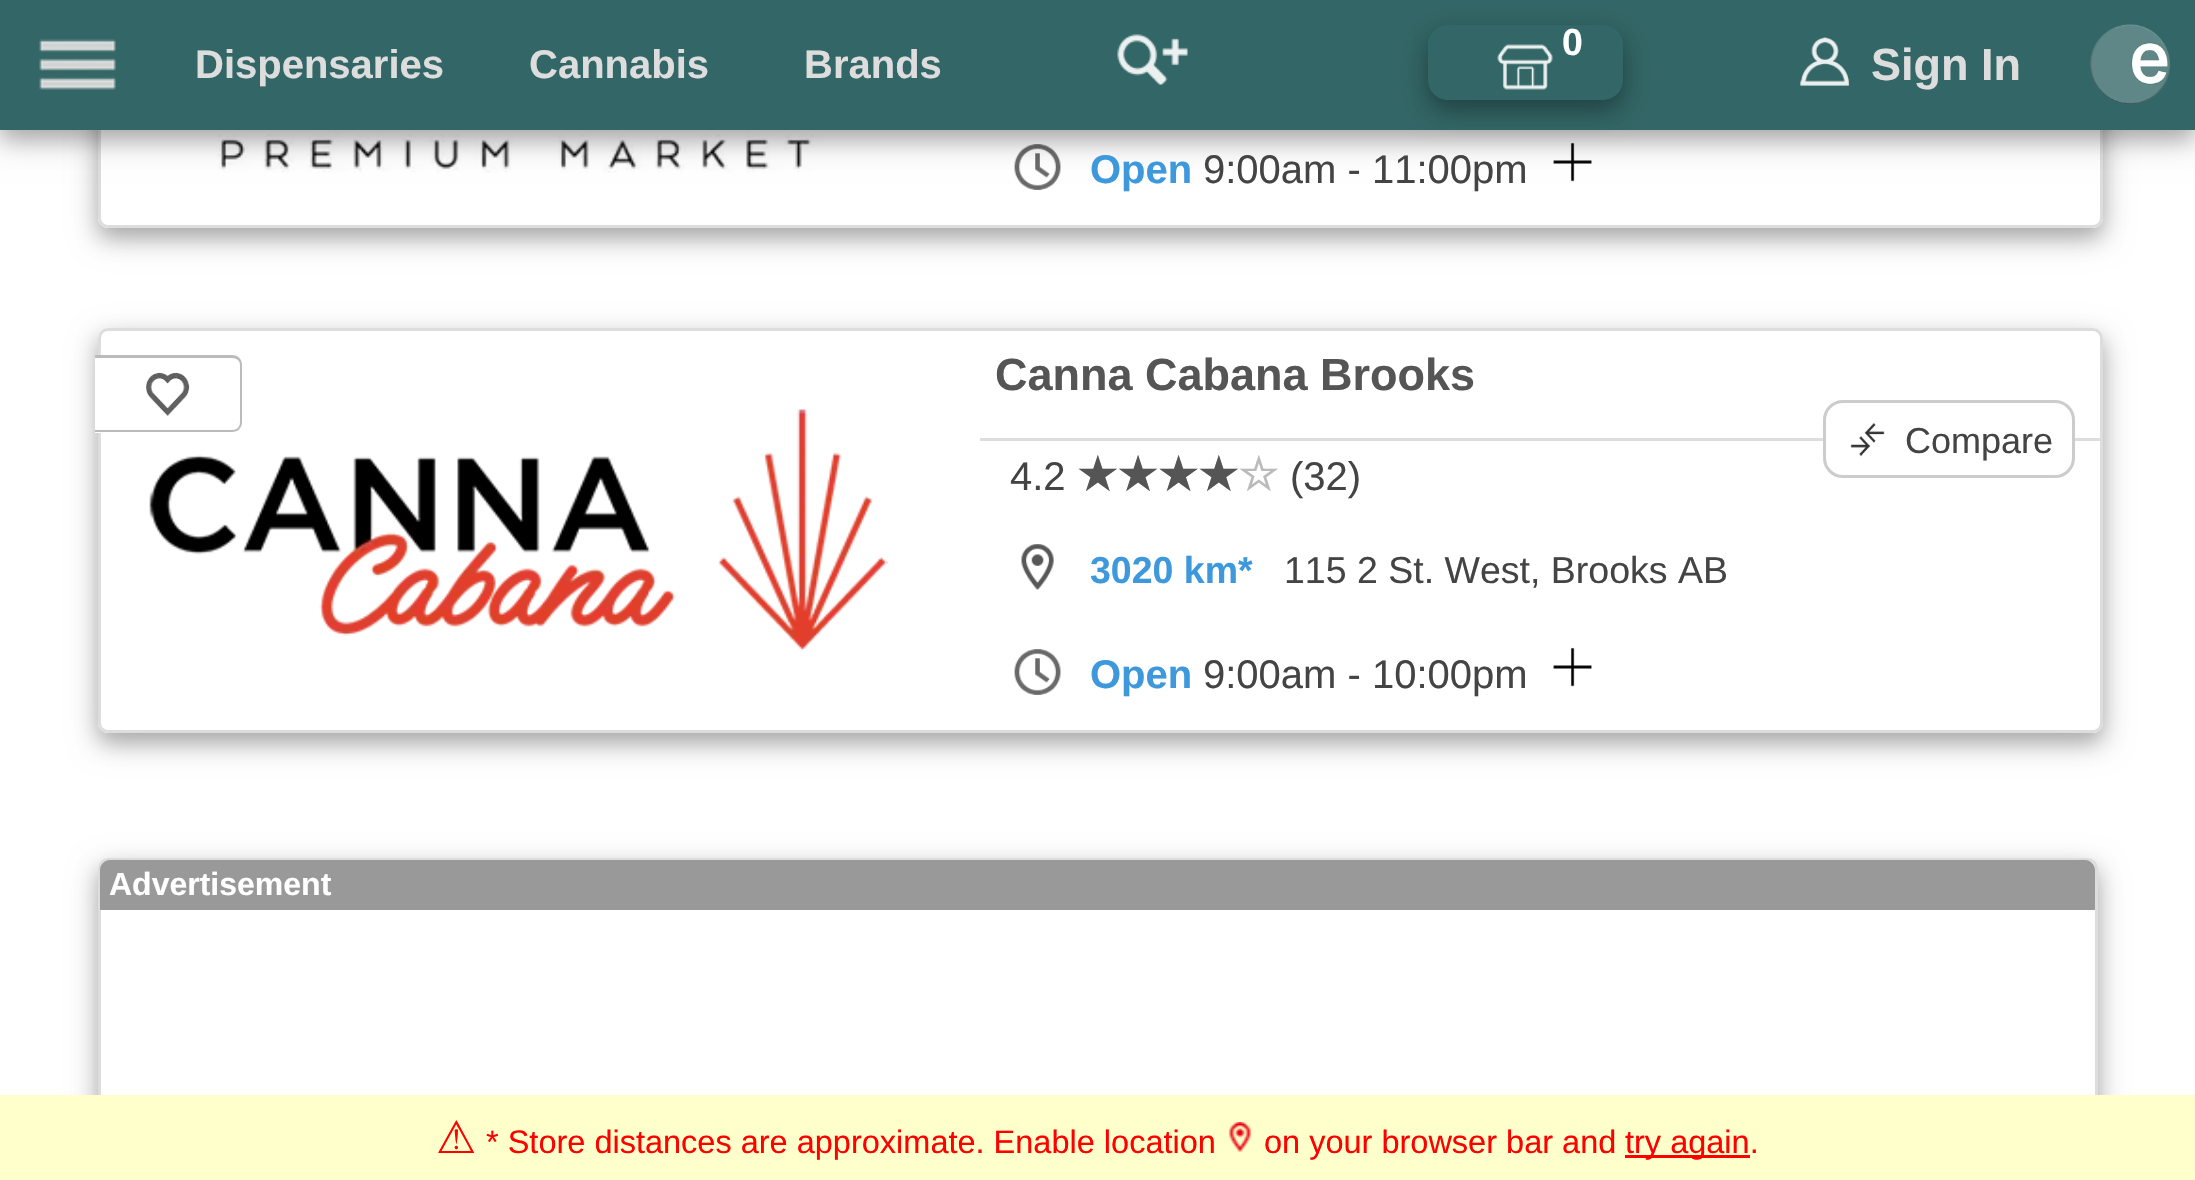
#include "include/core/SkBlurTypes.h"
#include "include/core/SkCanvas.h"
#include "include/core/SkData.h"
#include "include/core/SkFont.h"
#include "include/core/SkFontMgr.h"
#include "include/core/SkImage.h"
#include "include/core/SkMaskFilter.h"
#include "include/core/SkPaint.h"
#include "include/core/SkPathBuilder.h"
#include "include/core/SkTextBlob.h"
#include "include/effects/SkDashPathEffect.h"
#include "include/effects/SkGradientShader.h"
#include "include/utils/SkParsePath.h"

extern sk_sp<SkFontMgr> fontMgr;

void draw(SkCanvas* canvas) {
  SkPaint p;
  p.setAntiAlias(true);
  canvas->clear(SK_ColorWHITE);
  canvas->save();
  canvas->clipPath(SkPathBuilder(SkPathFillType::kEvenOdd).moveTo(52, 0).lineTo(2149, 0).lineTo(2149, 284).lineTo(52, 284).close().moveTo(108, -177).lineTo(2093, -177).cubicTo(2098.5f, -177, 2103, -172.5f, 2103, -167).lineTo(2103, 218).cubicTo(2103, 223.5f, 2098.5f, 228, 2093, 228).lineTo(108, 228).cubicTo(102.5f, 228, 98, 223.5f, 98, 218).lineTo(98, -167).cubicTo(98, -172.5f, 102.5f, -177, 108, -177).close().detach(), true);
  p.setColor(SkColorSetARGB(48, 0, 0, 0));
  p.setMaskFilter(SkMaskFilter::MakeBlur(kNormal_SkBlurStyle, 15));
  canvas->drawRoundRect(SkRect::MakeLTRB(98, -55, 2103, 238), 10, 10, p);
  p.setMaskFilter(nullptr);
  canvas->restore();
  canvas->save();
  canvas->clipPath(SkPathBuilder(SkPathFillType::kEvenOdd).moveTo(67, 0).lineTo(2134, 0).lineTo(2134, 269).lineTo(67, 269).close().moveTo(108, -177).lineTo(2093, -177).cubicTo(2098.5f, -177, 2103, -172.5f, 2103, -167).lineTo(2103, 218).cubicTo(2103, 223.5f, 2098.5f, 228, 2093, 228).lineTo(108, 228).cubicTo(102.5f, 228, 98, 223.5f, 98, 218).lineTo(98, -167).cubicTo(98, -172.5f, 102.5f, -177, 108, -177).close().detach(), true);
  p.setColor(SkColorSetARGB(51, 0, 0, 0));
  p.setMaskFilter(SkMaskFilter::MakeBlur(kNormal_SkBlurStyle, 10));
  canvas->drawRoundRect(SkRect::MakeLTRB(98, -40, 2103, 238), 10, 10, p);
  p.setMaskFilter(nullptr);
  canvas->restore();
  p.setStyle(SkPaint::kStroke_Style);
  p.setStrokeWidth(3);
  p.setColor(SkColorSetRGB(221, 221, 221));
  canvas->drawRoundRect(SkRect::MakeLTRB(99.5f, -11.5f, 2101.5f, 226.5f), 8.5f, 8.5f, p);
  canvas->drawImageRect(SkImages::DeferredFromEncodedData(SkData::MakeFromFileName("images/6.png")), SkRect::MakeLTRB(162, 130, 883, 173), SkSamplingOptions());
  canvas->drawImageRect(SkImages::DeferredFromEncodedData(SkData::MakeFromFileName("images/7.png")), SkRect::MakeLTRB(1014, 144, 1061, 190), SkSamplingOptions());
  canvas->drawImageRect(SkImages::DeferredFromEncodedData(SkData::MakeFromFileName("images/8.png")), SkRect::MakeLTRB(1553, 142, 1592, 182), SkSamplingOptions());
  p.setStyle(SkPaint::kFill_Style);
  p.setColor(SkColorSetARGB(48, 0, 0, 0));
  p.setMaskFilter(SkMaskFilter::MakeBlur(kNormal_SkBlurStyle, 15));
  canvas->drawRect(SkRect::MakeLTRB(0, 10, 2195, 140), p);
  p.setMaskFilter(nullptr);
  p.setColor(SkColorSetARGB(51, 0, 0, 0));
  p.setMaskFilter(SkMaskFilter::MakeBlur(kNormal_SkBlurStyle, 10));
  canvas->drawRect(SkRect::MakeLTRB(0, 10, 2195, 140), p);
  p.setMaskFilter(nullptr);
  p.setColor(SkColorSetRGB(51, 102, 102));
  canvas->drawRect(SkRect::MakeLTRB(0, 0, 2195, 130), p);
  canvas->drawImageRect(SkImages::DeferredFromEncodedData(SkData::MakeFromFileName("images/1.png")), SkRect::MakeLTRB(39, 39, 116, 90), SkSamplingOptions());
  canvas->drawImageRect(SkImages::DeferredFromEncodedData(SkData::MakeFromFileName("images/2.png")), SkRect::MakeLTRB(1117, 34, 1188, 85), SkSamplingOptions());
  canvas->save();
  canvas->clipPath(SkPathBuilder(SkPathFillType::kEvenOdd).moveTo(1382, 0).lineTo(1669, 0).lineTo(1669, 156).lineTo(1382, 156).close().moveTo(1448, 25).lineTo(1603, 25).cubicTo(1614, 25, 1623, 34, 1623, 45).lineTo(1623, 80).cubicTo(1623, 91, 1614, 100, 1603, 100).lineTo(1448, 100).cubicTo(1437, 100, 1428, 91, 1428, 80).lineTo(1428, 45).cubicTo(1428, 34, 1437, 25, 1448, 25).close().detach(), true);
  p.setColor(SkColorSetARGB(48, 0, 0, 0));
  p.setMaskFilter(SkMaskFilter::MakeBlur(kNormal_SkBlurStyle, 15));
  canvas->drawRoundRect(SkRect::MakeLTRB(1428, 35, 1623, 110), 20, 20, p);
  p.setMaskFilter(nullptr);
  canvas->restore();
  canvas->save();
  canvas->clipPath(SkPathBuilder(SkPathFillType::kEvenOdd).moveTo(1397, 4).lineTo(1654, 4).lineTo(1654, 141).lineTo(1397, 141).close().moveTo(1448, 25).lineTo(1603, 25).cubicTo(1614, 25, 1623, 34, 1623, 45).lineTo(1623, 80).cubicTo(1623, 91, 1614, 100, 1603, 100).lineTo(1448, 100).cubicTo(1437, 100, 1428, 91, 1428, 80).lineTo(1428, 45).cubicTo(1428, 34, 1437, 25, 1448, 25).close().detach(), true);
  p.setColor(SkColorSetARGB(51, 0, 0, 0));
  p.setMaskFilter(SkMaskFilter::MakeBlur(kNormal_SkBlurStyle, 10));
  canvas->drawRoundRect(SkRect::MakeLTRB(1428, 35, 1623, 110), 20, 20, p);
  p.setMaskFilter(nullptr);
  canvas->restore();
  canvas->drawImageRect(SkImages::DeferredFromEncodedData(SkData::MakeFromFileName("images/3.png")), SkRect::MakeLTRB(1497, 44, 1553, 90), SkSamplingOptions());
  canvas->drawImageRect(SkImages::DeferredFromEncodedData(SkData::MakeFromFileName("images/4.png")), SkRect::MakeLTRB(1800, 37, 1849, 86), SkSamplingOptions());
  canvas->drawImageRect(SkImages::DeferredFromEncodedData(SkData::MakeFromFileName("images/5.png")), SkRect::MakeLTRB(2090, 24, 2170, 105), SkSamplingOptions());
  canvas->save();
  canvas->clipPath(SkPathBuilder(SkPathFillType::kEvenOdd).moveTo(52, 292).lineTo(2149, 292).lineTo(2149, 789).lineTo(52, 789).close().moveTo(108, 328).lineTo(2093, 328).cubicTo(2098.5f, 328, 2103, 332.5f, 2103, 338).lineTo(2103, 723).cubicTo(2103, 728.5f, 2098.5f, 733, 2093, 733).lineTo(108, 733).cubicTo(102.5f, 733, 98, 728.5f, 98, 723).lineTo(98, 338).cubicTo(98, 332.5f, 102.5f, 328, 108, 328).close().detach(), true);
  p.setColor(SkColorSetARGB(48, 0, 0, 0));
  p.setMaskFilter(SkMaskFilter::MakeBlur(kNormal_SkBlurStyle, 15));
  canvas->drawRoundRect(SkRect::MakeLTRB(98, 338, 2103, 743), 10, 10, p);
  p.setMaskFilter(nullptr);
  canvas->restore();
  canvas->save();
  canvas->clipPath(SkPathBuilder(SkPathFillType::kEvenOdd).moveTo(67, 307).lineTo(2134, 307).lineTo(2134, 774).lineTo(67, 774).close().moveTo(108, 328).lineTo(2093, 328).cubicTo(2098.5f, 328, 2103, 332.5f, 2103, 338).lineTo(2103, 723).cubicTo(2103, 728.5f, 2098.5f, 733, 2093, 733).lineTo(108, 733).cubicTo(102.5f, 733, 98, 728.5f, 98, 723).lineTo(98, 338).cubicTo(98, 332.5f, 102.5f, 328, 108, 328).close().detach(), true);
  p.setColor(SkColorSetARGB(51, 0, 0, 0));
  p.setMaskFilter(SkMaskFilter::MakeBlur(kNormal_SkBlurStyle, 10));
  canvas->drawRoundRect(SkRect::MakeLTRB(98, 338, 2103, 743), 10, 10, p);
  p.setMaskFilter(nullptr);
  canvas->restore();
  p.setStyle(SkPaint::kStroke_Style);
  p.setColor(SkColorSetRGB(221, 221, 221));
  canvas->drawRoundRect(SkRect::MakeLTRB(99.5f, 329.5f, 2101.5f, 731.5f), 8.5f, 8.5f, p);
  canvas->drawImageRect(SkImages::DeferredFromEncodedData(SkData::MakeFromFileName("images/10.png")), SkRect::MakeLTRB(149, 409, 889, 651), SkSamplingOptions());
  p.setStyle(SkPaint::kFill_Style);
  p.setColor(SK_ColorWHITE);
  canvas->drawPath(SkPathBuilder().moveTo(95, 355).lineTo(233, 355).cubicTo(238.5f, 355, 243, 359.5f, 243, 365).lineTo(243, 423).cubicTo(243, 428.5f, 238.5f, 433, 233, 433).lineTo(95, 433).close().detach(), p);
  p.setColor(SkColorSetRGB(187, 187, 187));
  canvas->drawPath(SkPathBuilder(SkPathFillType::kEvenOdd).moveTo(95, 355).lineTo(232, 355).cubicTo(238, 355, 242, 359, 242, 365).lineTo(242, 422).cubicTo(242, 428, 238, 432, 232, 432).lineTo(95, 432).close().moveTo(95, 358).lineTo(232, 358).cubicTo(237, 358, 240, 361, 240, 365).lineTo(240, 422).cubicTo(240, 427, 237, 430, 232, 430).lineTo(95, 430).close().detach(), p);
  canvas->drawImageRect(SkImages::DeferredFromEncodedData(SkData::MakeFromFileName("images/9.png")), SkRect::MakeLTRB(146, 372, 190, 416), SkSamplingOptions());
  p.setColor(SkColorSetRGB(221, 221, 221));
  canvas->drawRect(SkRect::MakeLTRB(980, 438, 2100, 441), p);
  p.setColor(SK_ColorWHITE);
  canvas->drawRoundRect(SkRect::MakeLTRB(1824.5f, 401.5f, 2073.5f, 476.5f), 18.5f, 18.5f, p);
  p.setStyle(SkPaint::kStroke_Style);
  p.setColor(SkColorSetRGB(204, 204, 204));
  canvas->drawRoundRect(SkRect::MakeLTRB(1824.5f, 401.5f, 2073.5f, 476.5f), 18.5f, 18.5f, p);
  canvas->drawImageRect(SkImages::DeferredFromEncodedData(SkData::MakeFromFileName("images/11.png")), SkRect::MakeLTRB(1850, 423, 1885, 457), SkSamplingOptions());
  canvas->drawImageRect(SkImages::DeferredFromEncodedData(SkData::MakeFromFileName("images/12.png")), SkRect::MakeLTRB(1021, 544, 1054, 590), SkSamplingOptions());
  canvas->drawImageRect(SkImages::DeferredFromEncodedData(SkData::MakeFromFileName("images/7.png")), SkRect::MakeLTRB(1014, 649, 1061, 695), SkSamplingOptions());
  canvas->drawImageRect(SkImages::DeferredFromEncodedData(SkData::MakeFromFileName("images/8.png")), SkRect::MakeLTRB(1553, 647, 1592, 687), SkSamplingOptions());
  canvas->save();
  canvas->clipPath(SkPathBuilder(SkPathFillType::kEvenOdd).moveTo(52, 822).lineTo(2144, 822).lineTo(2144, 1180).lineTo(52, 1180).close().moveTo(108, 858).lineTo(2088, 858).cubicTo(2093.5f, 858, 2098, 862.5f, 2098, 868).lineTo(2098, 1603).cubicTo(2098, 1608.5f, 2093.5f, 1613, 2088, 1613).lineTo(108, 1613).cubicTo(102.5f, 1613, 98, 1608.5f, 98, 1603).lineTo(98, 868).cubicTo(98, 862.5f, 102.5f, 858, 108, 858).close().detach(), true);
  p.setStyle(SkPaint::kFill_Style);
  p.setColor(SkColorSetARGB(48, 0, 0, 0));
  p.setMaskFilter(SkMaskFilter::MakeBlur(kNormal_SkBlurStyle, 15));
  canvas->drawRoundRect(SkRect::MakeLTRB(98, 868, 2098, 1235), 10, 10, p);
  p.setMaskFilter(nullptr);
  canvas->restore();
  canvas->save();
  canvas->clipPath(SkPathBuilder(SkPathFillType::kEvenOdd).moveTo(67, 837).lineTo(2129, 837).lineTo(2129, 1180).lineTo(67, 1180).close().moveTo(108, 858).lineTo(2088, 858).cubicTo(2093.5f, 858, 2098, 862.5f, 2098, 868).lineTo(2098, 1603).cubicTo(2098, 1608.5f, 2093.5f, 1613, 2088, 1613).lineTo(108, 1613).cubicTo(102.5f, 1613, 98, 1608.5f, 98, 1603).lineTo(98, 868).cubicTo(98, 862.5f, 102.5f, 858, 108, 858).close().detach(), true);
  p.setColor(SkColorSetARGB(51, 0, 0, 0));
  p.setMaskFilter(SkMaskFilter::MakeBlur(kNormal_SkBlurStyle, 10));
  canvas->drawRoundRect(SkRect::MakeLTRB(98, 868, 2098, 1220), 10, 10, p);
  p.setMaskFilter(nullptr);
  canvas->restore();
  p.setStyle(SkPaint::kStroke_Style);
  p.setColor(SkColorSetRGB(221, 221, 221));
  canvas->drawRoundRect(SkRect::MakeLTRB(99.5f, 859.5f, 2096.5f, 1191.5f), 8.5f, 8.5f, p);
  p.setStyle(SkPaint::kFill_Style);
  p.setColor(SkColorSetRGB(153, 153, 153));
  canvas->drawPath(SkPathBuilder().moveTo(110, 860).lineTo(2085, 860).cubicTo(2090.5f, 860, 2095, 864.5f, 2095, 870).lineTo(2095, 910).lineTo(100, 910).lineTo(100, 870).cubicTo(100, 864.5f, 104.5f, 860, 110, 860).close().detach(), p);
  p.setColor(SkColorSetRGB(255, 255, 204));
  canvas->drawRect(SkRect::MakeLTRB(0, 1095, 2195, 1180), p);
  canvas->drawImageRect(SkImages::DeferredFromEncodedData(SkData::MakeFromFileName("images/13.png")), SkRect::MakeLTRB(1228, 1122, 1252, 1152), SkSamplingOptions());
  p.setColor(SkColorSetRGB(255, 0, 0));
  canvas->drawRect(SkRect::MakeLTRB(1625, 1155, 1750, 1158), p);
  SkFont font1(fontMgr->matchFamilyStyle("Liberation Sans", SkFontStyle::Bold()), 40);
  font1.setSubpixel(true);
  p.setColor(SkColorSetRGB(221, 221, 221));
  canvas->drawString("Dispensaries", 195, 78, font1, p);
  canvas->drawString("Cannabis", 529, 78, font1, p);
  canvas->drawString("Brands", 804, 78, font1, p);
  SkFont font2(fontMgr->matchFamilyStyle("Liberation Sans", SkFontStyle::Bold()), 37.5f);
  font2.setSubpixel(true);
  p.setColor(SK_ColorWHITE);
  canvas->drawString("0", 1562, 55, font2, p);
  SkFont font3(fontMgr->matchFamilyStyle("Liberation Sans", SkFontStyle::Bold()), 45);
  font3.setSubpixel(true);
  p.setColor(SkColorSetRGB(221, 221, 221));
  canvas->drawString("Sign In", 1871, 80, font3, p);
  p.setColor(SkColorSetRGB(61, 152, 220));
  canvas->drawString("Open", 1090, 183, font1, p);
  SkFont font4(fontMgr->matchFamilyStyle("Liberation Sans", SkFontStyle::Normal()), 40);
  font4.setSubpixel(true);
  p.setColor(SkColorSetRGB(68, 68, 68));
  canvas->drawString("9:00am - 11:00pm", 1203, 183, font4, p);
  p.setColor(SkColorSetRGB(85, 85, 85));
  canvas->drawString("Canna Cabana Brooks", 995, 390, font3, p);
  SkFont font5(fontMgr->matchFamilyStyle("Liberation Sans", SkFontStyle::Normal()), 36);
  font5.setSubpixel(true);
  p.setColor(SkColorSetRGB(68, 68, 68));
  canvas->drawString("Compare", 1905, 453, font5, p);
  canvas->drawString("4.2", 1010, 490, font4, p);
  SkFont font6(fontMgr->matchFamilyStyle("DejaVu Sans", SkFontStyle::Bold()), 45);
  font6.setSubpixel(true);
  p.setColor(SkColorSetRGB(85, 85, 85));
  canvas->drawString("★★★★", 1077, 490, font6, p);
  p.setColor(SkColorSetRGB(187, 187, 187));
  canvas->drawString("☆", 1238, 490, font6, p);
  p.setColor(SkColorSetRGB(68, 68, 68));
  canvas->drawString("(32)", 1290, 490, font4, p);
  p.setColor(SkColorSetRGB(61, 152, 220));
  canvas->drawString("3020 km*", 1090, 583, font2, p);
  SkFont font7(fontMgr->matchFamilyStyle("Liberation Sans", SkFontStyle::Normal()), 37.5f);
  font7.setSubpixel(true);
  p.setColor(SkColorSetRGB(68, 68, 68));
  canvas->drawString("115 2 St. West, Brooks AB", 1284, 583, font7, p);
  p.setColor(SkColorSetRGB(61, 152, 220));
  canvas->drawString("Open", 1090, 688, font1, p);
  p.setColor(SkColorSetRGB(68, 68, 68));
  canvas->drawString("9:00am - 10:00pm", 1203, 688, font4, p);
  SkFont font8(fontMgr->matchFamilyStyle("Liberation Sans", SkFontStyle::Bold()), 32);
  font8.setSubpixel(true);
  p.setColor(SK_ColorWHITE);
  canvas->drawString("Advertisement", 109, 895, font8, p);
  SkFont font9(fontMgr->matchFamilyStyle("DejaVu Sans", SkFontStyle::Normal()), 45);
  font9.setSubpixel(true);
  p.setColor(SkColorSetRGB(255, 0, 0));
  canvas->drawString("⚠", 436, 1153, font9, p);
  SkFont font10(fontMgr->matchFamilyStyle("Liberation Sans", SkFontStyle::Normal()), 32.5f);
  font10.setSubpixel(true);
  canvas->drawString("* Store distances are approximate. Enable location", 486, 1153, font10, p);
  canvas->drawString("on your browser bar and", 1264, 1153, font10, p);
  canvas->drawString("try again.", 1625, 1153, font10, p);
}
